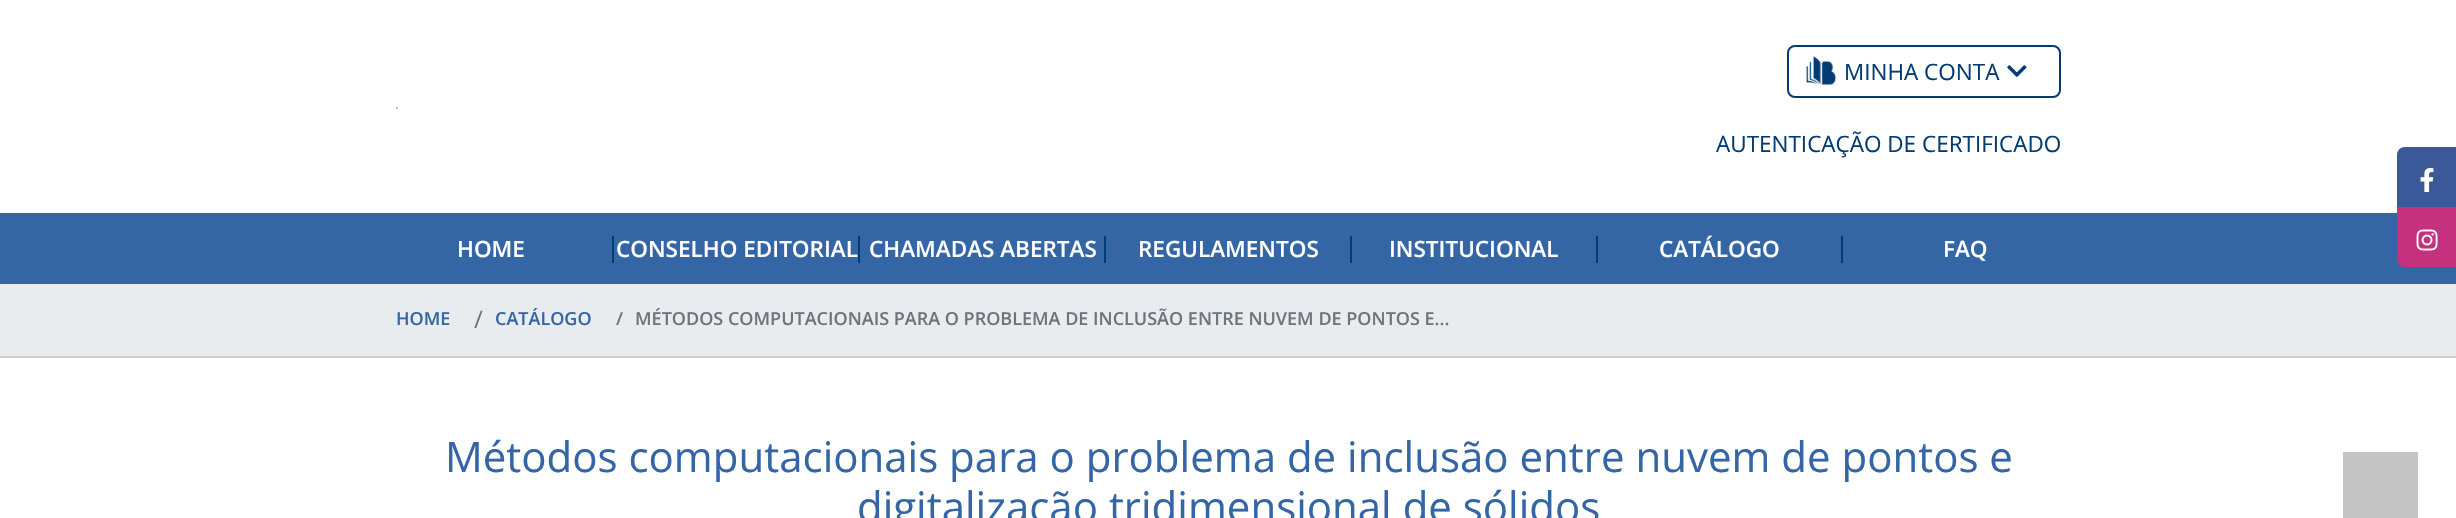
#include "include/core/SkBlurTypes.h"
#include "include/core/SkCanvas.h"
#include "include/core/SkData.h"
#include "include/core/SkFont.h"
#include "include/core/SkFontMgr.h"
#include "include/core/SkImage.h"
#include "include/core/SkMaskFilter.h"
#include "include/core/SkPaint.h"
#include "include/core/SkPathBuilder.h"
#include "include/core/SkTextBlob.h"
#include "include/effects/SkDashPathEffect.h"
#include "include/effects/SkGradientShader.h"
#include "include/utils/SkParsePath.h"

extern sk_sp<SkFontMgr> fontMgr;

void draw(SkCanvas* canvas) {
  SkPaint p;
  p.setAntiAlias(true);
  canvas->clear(SK_ColorWHITE);
  p.setColor(SkColorSetRGB(197, 197, 197));
  canvas->drawRect(SkRect::MakeLTRB(396, 107, 398, 109), p);
  p.setStyle(SkPaint::kStroke_Style);
  p.setStrokeWidth(2);
  p.setColor(SkColorSetRGB(2, 60, 116));
  canvas->drawRoundRect(SkRect::MakeLTRB(1788, 46, 2060, 97), 7, 7, p);
  canvas->drawImageRect(SkImages::DeferredFromEncodedData(SkData::MakeFromFileName("images/1.png")), SkRect::MakeLTRB(1806, 56, 1836, 85), SkSamplingOptions());
  canvas->drawImageRect(SkImages::DeferredFromEncodedData(SkData::MakeFromFileName("images/2.png")), SkRect::MakeLTRB(2007, 65, 2027, 77), SkSamplingOptions());
  p.setStyle(SkPaint::kFill_Style);
  p.setColor(SkColorSetRGB(52, 101, 164));
  canvas->drawRect(SkRect::MakeLTRB(0, 213, 2456, 284), p);
  p.setColor(SkColorSetRGB(2, 60, 116));
  canvas->drawRect(SkRect::MakeLTRB(612, 236, 614, 263), p);
  canvas->drawRect(SkRect::MakeLTRB(858, 236, 860, 263), p);
  canvas->drawRect(SkRect::MakeLTRB(1104, 236, 1106, 263), p);
  canvas->drawRect(SkRect::MakeLTRB(1350, 236, 1352, 263), p);
  canvas->drawRect(SkRect::MakeLTRB(1596, 236, 1598, 263), p);
  canvas->drawRect(SkRect::MakeLTRB(1841, 236, 1843, 263), p);
  p.setColor(SkColorSetRGB(59, 89, 152));
  canvas->drawPath(SkPathBuilder().moveTo(2405, 147).lineTo(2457, 147).lineTo(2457, 207).lineTo(2397, 207).lineTo(2397, 155).cubicTo(2397, 150.5f, 2400.5f, 147, 2405, 147).close().detach(), p);
  canvas->drawImageRect(SkImages::DeferredFromEncodedData(SkData::MakeFromFileName("images/3.png")), SkRect::MakeLTRB(2420, 168, 2434, 192), SkSamplingOptions());
  p.setColor(SkColorSetRGB(197, 49, 126));
  canvas->drawPath(SkPathBuilder().moveTo(2397, 207).lineTo(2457, 207).lineTo(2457, 267).lineTo(2405, 267).cubicTo(2400.5f, 267, 2397, 263.5f, 2397, 259).close().detach(), p);
  canvas->drawImageRect(SkImages::DeferredFromEncodedData(SkData::MakeFromFileName("images/4.png")), SkRect::MakeLTRB(2416, 229, 2438, 251), SkSamplingOptions());
  p.setColor(SkColorSetRGB(233, 236, 239));
  canvas->drawRect(SkRect::MakeLTRB(0, 284, 2456, 356), p);
  p.setColor(SkColorSetRGB(204, 204, 204));
  canvas->drawRect(SkRect::MakeLTRB(0, 356, 2456, 358), p);
  p.setColor(SkColorSetRGB(197, 197, 197));
  canvas->drawRect(SkRect::MakeLTRB(2343, 452, 2418, 518), p);
  SkFont font1(fontMgr->matchFamilyStyle("Open Sans", SkFontStyle::Normal()), 22.5f);
  font1.setSubpixel(true);
  p.setColor(SkColorSetRGB(2, 60, 116));
  canvas->drawString("MINHA CONTA", 1844, 80, font1, p);
  canvas->drawString("AUTENTICAÇÃO DE CERTIFICADO", 1716, 152, font1, p);
  SkFont font2(fontMgr->matchFamilyStyle("Open Sans", SkFontStyle(600, SkFontStyle::kNormal_Width, SkFontStyle::kUpright_Slant)), 22.5f);
  font2.setSubpixel(true);
  p.setColor(SK_ColorWHITE);
  canvas->drawString("HOME", 457, 257, font2, p);
  canvas->drawString("CONSELHO EDITORIAL", 616, 257, font2, p);
  canvas->drawString("CHAMADAS ABERTAS", 869, 257, font2, p);
  canvas->drawString("REGULAMENTOS", 1138, 257, font2, p);
  canvas->drawString("INSTITUCIONAL", 1389, 257, font2, p);
  canvas->drawString("CATÁLOGO", 1659, 257, font2, p);
  canvas->drawString("FAQ", 1943, 257, font2, p);
  SkFont font3(fontMgr->matchFamilyStyle("Open Sans", SkFontStyle(600, SkFontStyle::kNormal_Width, SkFontStyle::kUpright_Slant)), 18);
  font3.setSubpixel(true);
  p.setColor(SkColorSetRGB(52, 101, 164));
  canvas->drawString("HOME", 396, 325, font3, p);
  SkFont font4(fontMgr->matchFamilyStyle("Open Sans", SkFontStyle::Normal()), 24);
  font4.setSubpixel(true);
  p.setColor(SkColorSetRGB(108, 117, 125));
  canvas->drawString("/", 474, 328, font4, p);
  p.setColor(SkColorSetRGB(52, 101, 164));
  canvas->drawString("CATÁLOGO", 495, 325, font3, p);
  p.setColor(SkColorSetRGB(108, 117, 125));
  canvas->drawString("/", 616, 325, font3, p);
  canvas->drawString("MÉTODOS COMPUTACIONAIS PARA O PROBLEMA DE INCLUSÃO ENTRE NUVEM DE PONTOS E...", 635, 325, font3, p);
  SkFont font5(fontMgr->matchFamilyStyle("Open Sans", SkFontStyle::Normal()), 42);
  font5.setSubpixel(true);
  p.setColor(SkColorSetRGB(52, 101, 164));
  canvas->drawString("Métodos computacionais para o problema de inclusão entre nuvem de pontos e", 445, 472, font5, p);
  canvas->drawString("digitalização tridimensional de sólidos", 857, 522, font5, p);
}
